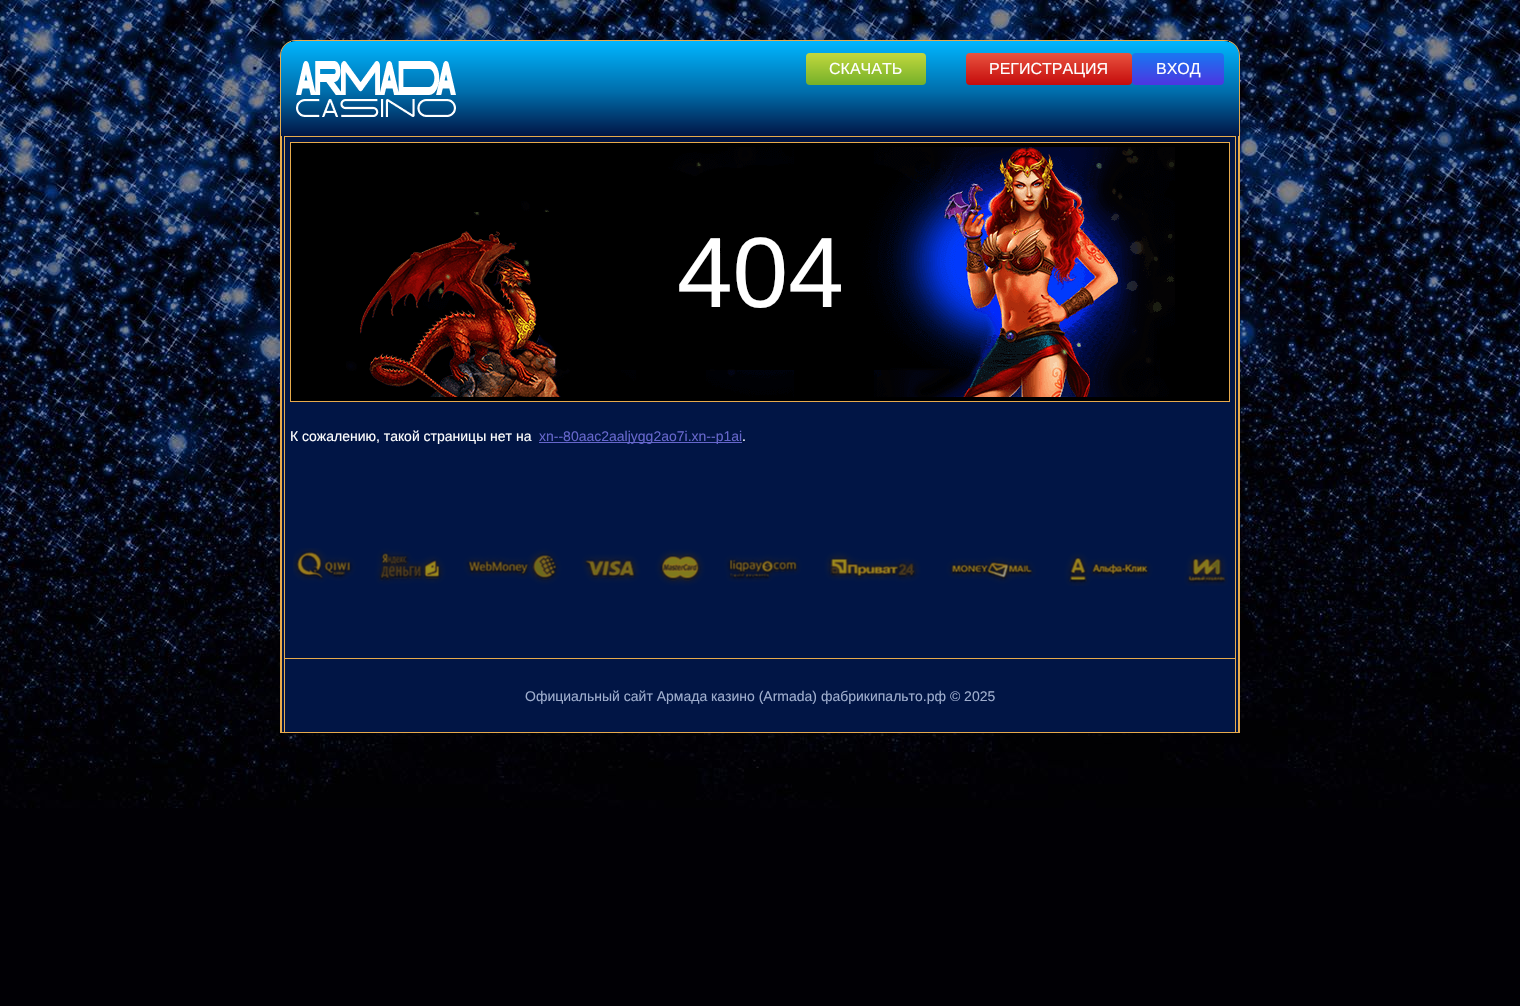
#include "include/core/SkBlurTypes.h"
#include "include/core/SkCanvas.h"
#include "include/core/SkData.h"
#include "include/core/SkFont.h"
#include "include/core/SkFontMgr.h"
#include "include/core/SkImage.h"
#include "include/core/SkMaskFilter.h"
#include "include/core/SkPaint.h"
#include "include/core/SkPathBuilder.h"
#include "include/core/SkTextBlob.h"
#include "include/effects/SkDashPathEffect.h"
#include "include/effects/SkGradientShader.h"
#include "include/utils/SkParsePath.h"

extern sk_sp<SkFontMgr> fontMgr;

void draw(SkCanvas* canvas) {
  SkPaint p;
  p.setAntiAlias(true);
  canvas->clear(SkColorSetRGB(1, 0, 5));
  canvas->drawImageRect(SkImages::DeferredFromEncodedData(SkData::MakeFromFileName("images/1.png")), SkRect::MakeLTRB(0, 0, 1520, 808), SkSamplingOptions());
  p.setColor(SkColorSetRGB(1, 21, 69));
  canvas->drawPath(SkPathBuilder().moveTo(296, 40).lineTo(1224, 40).cubicTo(1233, 40, 1240, 47, 1240, 56).lineTo(1240, 733).lineTo(280, 733).lineTo(280, 56).cubicTo(280, 47, 287, 40, 296, 40).close().detach(), p);
  p.setColor(SkColorSetRGB(231, 170, 76));
  canvas->drawPath(SkPathBuilder().moveTo(281, 732).lineTo(281, 733).lineTo(1239, 733).lineTo(1239, 56).cubicTo(1239, 52, 1237, 48, 1235, 45).cubicTo(1237, 48, 1238, 52, 1238, 56).lineTo(1238, 732).close().detach(), p);
  canvas->drawPath(SkPathBuilder().moveTo(285, 45).cubicTo(283, 48, 281, 52, 281, 56).lineTo(281, 733).lineTo(1239, 733).lineTo(1239, 732).lineTo(282, 732).lineTo(282, 56).cubicTo(282, 52, 283, 48, 285, 45).close().detach(), p);
  canvas->drawPath(SkPathBuilder(SkPathFillType::kEvenOdd).moveTo(296, 40).lineTo(1224, 40).cubicTo(1233, 40, 1240, 47, 1240, 56).lineTo(1240, 733).lineTo(280, 733).lineTo(280, 56).cubicTo(280, 47, 287, 40, 296, 40).close().moveTo(296, 41).lineTo(1224, 41).cubicTo(1232, 41, 1239, 48, 1239, 56).lineTo(1239, 733).lineTo(281, 733).lineTo(281, 56).cubicTo(281, 48, 288, 41, 296, 41).close().detach(), p);
  p.setColor(SkColorSetRGB(1, 0, 5));
  canvas->drawRect(SkRect::MakeLTRB(291, 41, 1229, 42), p);
  {
    const SkColor colors[] = {SkColorSetRGB(0, 182, 255), SkColorSetRGB(0, 109, 171)};
    const float stops[] = {0, 1};
    const SkPoint ends[] = {{760, 41}, {760, 92}};
    p.setShader(SkGradientShader::MakeLinear(ends, colors, stops, 2, SkTileMode::kClamp));
    p.setAlpha(255);
  }
  canvas->drawPath(SkPathBuilder().moveTo(296, 41).lineTo(1224, 41).cubicTo(1232.5f, 41, 1239, 47.5f, 1239, 56).lineTo(1239, 92).lineTo(281, 92).lineTo(281, 56).cubicTo(281, 47.5f, 287.5f, 41, 296, 41).close().detach(), p);
  {
    const SkColor colors[] = {SkColorSetRGB(0, 109, 171), SkColorSetRGB(1, 21, 69)};
    const float stops[] = {0, 1};
    const SkPoint ends[] = {{760, 92}, {760, 136}};
    p.setShader(SkGradientShader::MakeLinear(ends, colors, stops, 2, SkTileMode::kClamp));
    p.setAlpha(255);
  }
  canvas->drawRect(SkRect::MakeLTRB(281, 92, 1239, 136), p);
  canvas->drawImageRect(SkImages::DeferredFromEncodedData(SkData::MakeFromFileName("images/2.png")), SkRect::MakeLTRB(296, 61, 456, 117), SkSamplingOptions());
  {
    const SkColor colors[] = {SkColorSetRGB(194, 216, 61), SkColorSetRGB(117, 176, 42)};
    const float stops[] = {0, 1};
    const SkPoint ends[] = {{866, 53}, {866, 85}};
    p.setShader(SkGradientShader::MakeLinear(ends, colors, stops, 2, SkTileMode::kClamp));
    p.setAlpha(255);
  }
  canvas->drawRoundRect(SkRect::MakeLTRB(806, 53, 926, 85), 4, 4, p);
  {
    const SkColor colors[] = {SkColorSetRGB(232, 83, 63), SkColorSetRGB(197, 11, 11)};
    const float stops[] = {0, 1};
    const SkPoint ends[] = {{1049, 53}, {1049, 85}};
    p.setShader(SkGradientShader::MakeLinear(ends, colors, stops, 2, SkTileMode::kClamp));
    p.setAlpha(255);
  }
  canvas->drawRoundRect(SkRect::MakeLTRB(966, 53, 1132, 85), 4, 4, p);
  {
    const SkColor colors[] = {SkColorSetRGB(24, 119, 242), SkColorSetRGB(77, 53, 225)};
    const float stops[] = {0, 1};
    const SkPoint ends[] = {{1178, 53}, {1178, 85}};
    p.setShader(SkGradientShader::MakeLinear(ends, colors, stops, 2, SkTileMode::kClamp));
    p.setAlpha(255);
  }
  canvas->drawRoundRect(SkRect::MakeLTRB(1132, 53, 1224, 85), 4, 4, p);
  p.setShader(nullptr);
  p.setColor(SkColorSetRGB(231, 170, 76));
  canvas->drawRect(SkRect::MakeLTRB(284, 136, 1236, 137), p);
  canvas->drawRect(SkRect::MakeLTRB(1235, 136, 1236, 733), p);
  canvas->drawRect(SkRect::MakeLTRB(284, 136, 285, 733), p);
  p.setColor(SK_ColorBLACK);
  canvas->drawRect(SkRect::MakeLTRB(290.5f, 142.5f, 1229.5f, 401.5f), p);
  p.setStyle(SkPaint::kStroke_Style);
  p.setStrokeWidth(1);
  p.setColor(SkColorSetRGB(231, 170, 76));
  canvas->drawRect(SkRect::MakeLTRB(290.5f, 142.5f, 1229.5f, 401.5f), p);
  canvas->drawImageRect(SkImages::DeferredFromEncodedData(SkData::MakeFromFileName("images/3.png")), SkRect::MakeLTRB(346, 147, 1175, 397), SkSamplingOptions());
  p.setStyle(SkPaint::kFill_Style);
  p.setColor(SkColorSetRGB(102, 102, 204));
  canvas->drawRect(SkRect::MakeLTRB(539, 442, 742, 443), p);
  canvas->drawImageRect(SkImages::DeferredFromEncodedData(SkData::MakeFromFileName("images/4.png")), SkRect::MakeLTRB(293, 548, 1228, 586), SkSamplingOptions());
  p.setColor(SkColorSetRGB(231, 170, 76));
  canvas->drawRect(SkRect::MakeLTRB(285, 658, 1235, 659), p);
  SkFont font1(fontMgr->matchFamilyStyle("Liberation Sans", SkFontStyle::Normal()), 16);
  font1.setSubpixel(true);
  p.setColor(SK_ColorWHITE);
  canvas->drawString("СКАЧАТЬ", 829, 74, font1, p);
  canvas->drawString("РЕГИСТРАЦИЯ", 989, 74, font1, p);
  canvas->drawString("ВХОД", 1156, 74, font1, p);
  SkFont font2(fontMgr->matchFamilyStyle("Liberation Sans", SkFontStyle::Normal()), 100);
  font2.setSubpixel(true);
  canvas->drawString("404", 677, 307, font2, p);
  SkFont font3(fontMgr->matchFamilyStyle("Liberation Sans", SkFontStyle::Normal()), 14);
  font3.setSubpixel(true);
  canvas->drawString("К сожалению, такой страницы нет на", 290, 441, font3, p);
  p.setColor(SkColorSetRGB(102, 102, 204));
  canvas->drawString("xn--80aac2aaljygg2ao7i.xn--p1ai", 539, 441, font3, p);
  p.setColor(SK_ColorWHITE);
  canvas->drawString(".", 742, 441, font3, p);
  p.setColor(SkColorSetRGB(159, 174, 206));
  canvas->drawString("Официальный сайт Армада казино (Armada) фабрикипальто.рф © 2025", 525, 701, font3, p);
}
